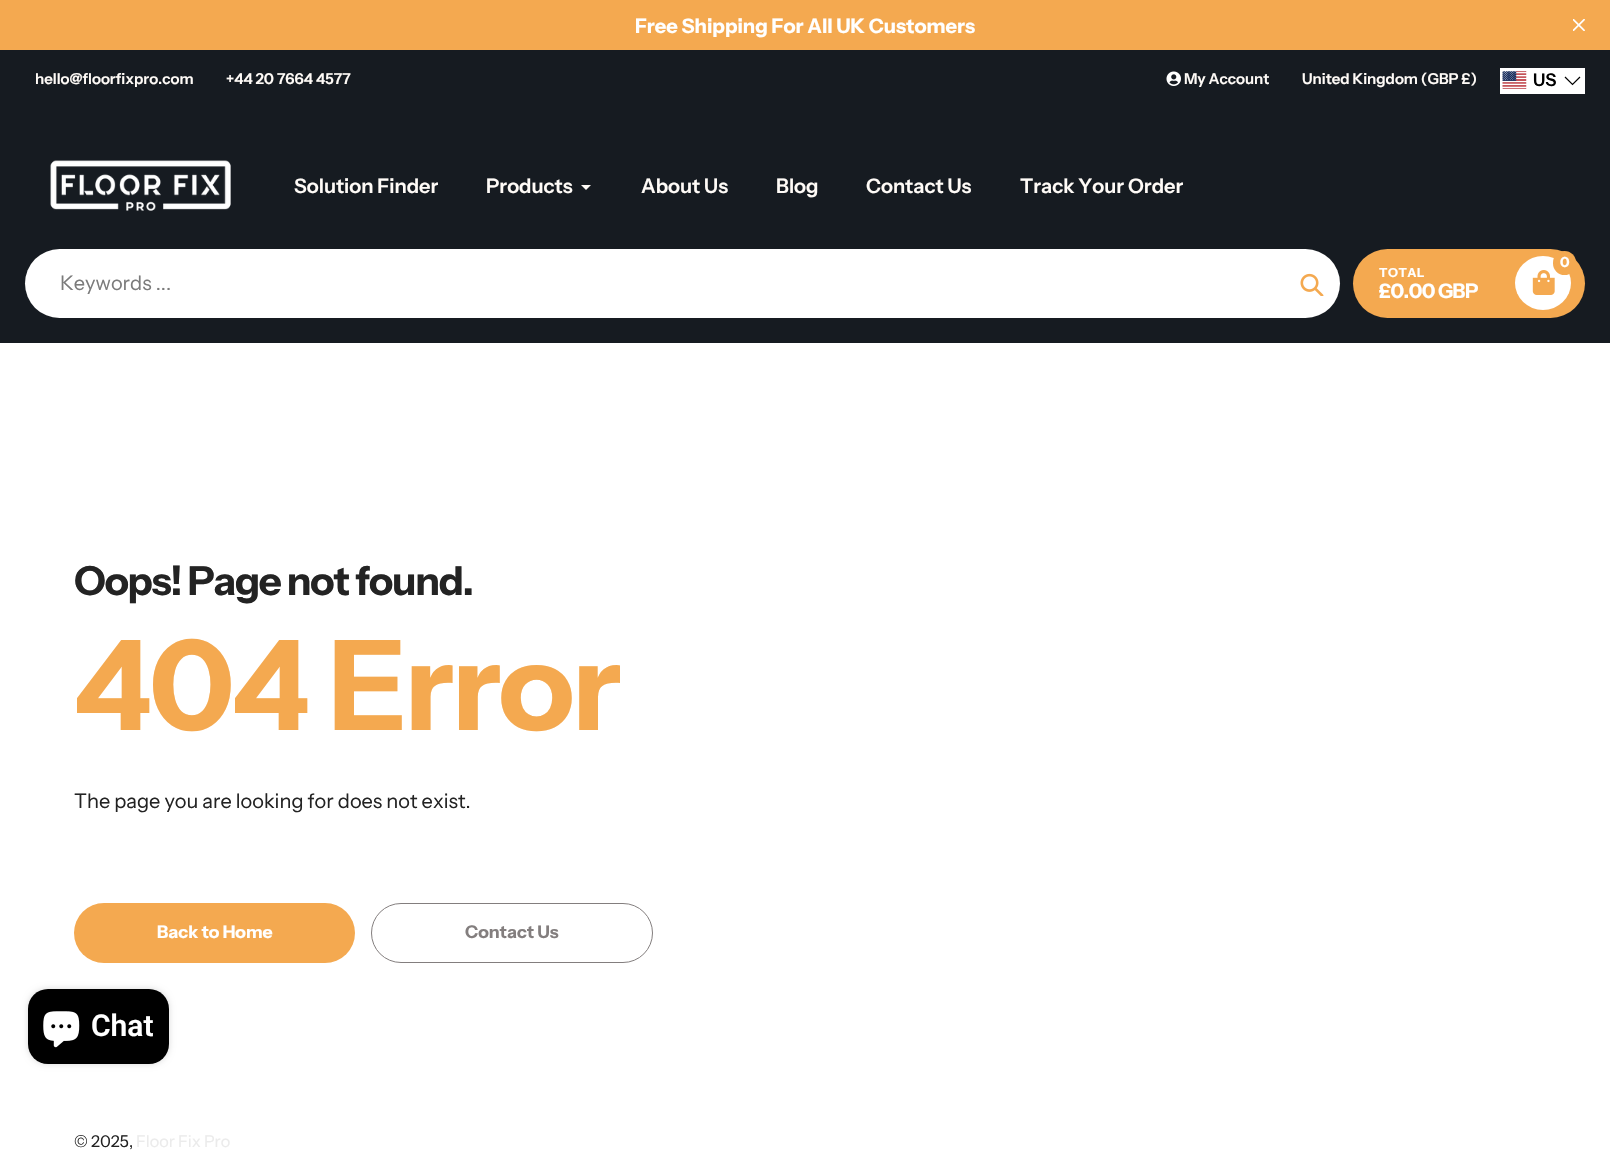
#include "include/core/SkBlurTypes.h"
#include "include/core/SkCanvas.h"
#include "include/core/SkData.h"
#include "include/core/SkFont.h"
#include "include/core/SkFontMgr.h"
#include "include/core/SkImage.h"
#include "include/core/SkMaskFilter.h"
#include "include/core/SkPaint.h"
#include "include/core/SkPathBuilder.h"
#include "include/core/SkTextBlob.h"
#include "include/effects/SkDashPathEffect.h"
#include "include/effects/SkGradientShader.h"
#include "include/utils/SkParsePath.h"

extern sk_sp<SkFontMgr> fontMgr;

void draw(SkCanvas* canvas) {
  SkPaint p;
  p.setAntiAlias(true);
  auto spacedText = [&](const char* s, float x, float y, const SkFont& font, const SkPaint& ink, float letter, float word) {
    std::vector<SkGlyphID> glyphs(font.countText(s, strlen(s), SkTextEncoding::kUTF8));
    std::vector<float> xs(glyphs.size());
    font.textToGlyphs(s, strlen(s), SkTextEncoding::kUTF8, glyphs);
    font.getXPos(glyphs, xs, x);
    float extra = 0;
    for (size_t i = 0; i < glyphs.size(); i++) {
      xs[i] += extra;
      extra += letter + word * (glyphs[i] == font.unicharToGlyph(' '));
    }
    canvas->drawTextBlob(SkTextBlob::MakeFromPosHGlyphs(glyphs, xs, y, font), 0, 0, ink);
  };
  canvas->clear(SK_ColorWHITE);
  p.setColor(SkColorSetRGB(244, 169, 80));
  canvas->drawRect(SkRect::MakeLTRB(0, 0, 1610, 50), p);
  canvas->drawImageRect(SkImages::DeferredFromEncodedData(SkData::MakeFromFileName("images/1.png")), SkRect::MakeLTRB(1573, 19, 1585, 31), SkSamplingOptions());
  p.setColor(SkColorSetRGB(22, 27, 33));
  canvas->drawRect(SkRect::MakeLTRB(0, 50, 1610, 343), p);
  canvas->drawImageRect(SkImages::DeferredFromEncodedData(SkData::MakeFromFileName("images/2.png")), SkRect::MakeLTRB(1166, 71, 1181, 86), SkSamplingOptions());
  p.setColor(SK_ColorWHITE);
  canvas->drawRect(SkRect::MakeLTRB(1500, 68, 1585, 94), p);
  canvas->drawImageRect(SkImages::DeferredFromEncodedData(SkData::MakeFromFileName("images/3.png")), SkRect::MakeLTRB(1502, 71, 1527, 89), SkSamplingOptions());
  p.setStyle(SkPaint::kStroke_Style);
  p.setStrokeWidth(1.2f);
  p.setColor(SK_ColorBLACK);
  canvas->drawPath(SkPathBuilder().moveTo(1565, 77).lineTo(1572.5f, 84.5f).lineTo(1580, 77).detach(), p);
  canvas->drawImageRect(SkImages::DeferredFromEncodedData(SkData::MakeFromFileName("images/4.png")), SkRect::MakeLTRB(50, 160, 231, 211), SkSamplingOptions());
  p.setStyle(SkPaint::kFill_Style);
  p.setColor(SkColorSetRGB(255, 251, 247));
  canvas->drawPath(SkPathBuilder().moveTo(591, 185).lineTo(586, 190).lineTo(581, 185).detach(), p);
  p.setColor(SK_ColorWHITE);
  canvas->drawRoundRect(SkRect::MakeLTRB(25, 249, 1340, 318), 34.5f, 34.5f, p);
  canvas->drawImageRect(SkImages::DeferredFromEncodedData(SkData::MakeFromFileName("images/5.png")), SkRect::MakeLTRB(1300, 273, 1324, 296), SkSamplingOptions());
  p.setColor(SkColorSetRGB(244, 169, 80));
  canvas->drawRoundRect(SkRect::MakeLTRB(1353, 249, 1585, 318), 34.5f, 34.5f, p);
  p.setColor(SK_ColorWHITE);
  canvas->drawOval(SkRect::MakeLTRB(1515, 256, 1571, 310), p);
  canvas->drawImageRect(SkImages::DeferredFromEncodedData(SkData::MakeFromFileName("images/6.png")), SkRect::MakeLTRB(1532, 270, 1555, 295), SkSamplingOptions());
  p.setColor(SkColorSetRGB(244, 169, 80));
  canvas->drawRoundRect(SkRect::MakeLTRB(1553, 251, 1576, 275), 11.5f, 11.5f, p);
  canvas->drawRoundRect(SkRect::MakeLTRB(74, 903, 355, 963), 30, 30, p);
  p.setStyle(SkPaint::kStroke_Style);
  p.setStrokeWidth(1);
  p.setColor(SkColorSetRGB(131, 126, 126));
  canvas->drawRoundRect(SkRect::MakeLTRB(371.5f, 903.5f, 652.5f, 962.5f), 29.5f, 29.5f, p);
  p.setStyle(SkPaint::kFill_Style);
  p.setColor(SkColorSetARGB(38, 0, 0, 0));
  p.setMaskFilter(SkMaskFilter::MakeBlur(kNormal_SkBlurStyle, 3));
  canvas->drawRoundRect(SkRect::MakeLTRB(28, 989, 169, 1064), 20, 20, p);
  p.setMaskFilter(nullptr);
  p.setColor(SK_ColorBLACK);
  canvas->drawRoundRect(SkRect::MakeLTRB(28, 989, 169, 1064), 20, 20, p);
  canvas->drawImageRect(SkImages::DeferredFromEncodedData(SkData::MakeFromFileName("images/7.png")), SkRect::MakeLTRB(43, 1011, 80, 1048), SkSamplingOptions());
  SkFont font1(fontMgr->matchFamilyStyle("Instrument Sans", SkFontStyle::Bold()), 20);
  font1.setSubpixel(true);
  p.setColor(SK_ColorWHITE);
  canvas->drawString("Free Shipping For All UK Customers", 635, 33, font1, p);
  SkFont font2(fontMgr->matchFamilyStyle("Instrument Sans", SkFontStyle(600, SkFontStyle::kNormal_Width, SkFontStyle::kUpright_Slant)), 15);
  font2.setSubpixel(true);
  p.setColor(SkColorSetRGB(255, 251, 247));
  canvas->drawString("hello@floorfixpro.com", 35, 84, font2, p);
  canvas->drawString("+44 20 7664 4577", 226, 84, font2, p);
  canvas->drawString("My Account", 1184, 84, font2, p);
  canvas->drawString("United Kingdom (GBP £)", 1302, 84, font2, p);
  SkFont font3(fontMgr->matchFamilyStyle("Instrument Sans", SkFontStyle(600, SkFontStyle::kNormal_Width, SkFontStyle::kUpright_Slant)), 17.5f);
  font3.setSubpixel(true);
  p.setColor(SK_ColorBLACK);
  canvas->drawString("US", 1533, 86, font3, p);
  SkFont font4(fontMgr->matchFamilyStyle("Instrument Sans", SkFontStyle(600, SkFontStyle::kNormal_Width, SkFontStyle::kUpright_Slant)), 20);
  font4.setSubpixel(true);
  p.setColor(SkColorSetRGB(255, 251, 247));
  canvas->drawString("Solution Finder", 294, 193, font4, p);
  canvas->drawString("Products", 486, 193, font4, p);
  canvas->drawString("About Us", 641, 193, font4, p);
  canvas->drawString("Blog", 776, 193, font4, p);
  canvas->drawString("Contact Us", 866, 193, font4, p);
  canvas->drawString("Track Your Order", 1020, 193, font4, p);
  SkFont font5(fontMgr->matchFamilyStyle("Instrument Sans", SkFontStyle::Normal()), 20);
  font5.setSubpixel(true);
  p.setColor(SkColorSetRGB(123, 123, 123));
  canvas->drawString("Keywords ...", 60, 290, font5, p);
  SkFont font6(fontMgr->matchFamilyStyle("Instrument Sans", SkFontStyle::Bold()), 14);
  font6.setSubpixel(true);
  p.setColor(SK_ColorWHITE);
  canvas->drawString("0", 1560, 267, font6, p);
  SkFont font7(fontMgr->matchFamilyStyle("Instrument Sans", SkFontStyle::Bold()), 12.5f);
  font7.setSubpixel(true);
  spacedText("TOTAL", 1379, 277, font7, p, 0.5f, 0);
  spacedText("£0.00 GBP", 1379, 298, font1, p, -0.6f, 0);
  SkFont font8(fontMgr->matchFamilyStyle("Instrument Sans", SkFontStyle::Bold()), 40);
  font8.setSubpixel(true);
  p.setColor(SkColorSetRGB(35, 35, 35));
  spacedText("Oops! Page not found.", 74, 595, font8, p, -1.25f, 0);
  SkFont font9(fontMgr->matchFamilyStyle("Instrument Sans", SkFontStyle::Bold()), 125);
  font9.setSubpixel(true);
  p.setColor(SkColorSetRGB(244, 169, 80));
  spacedText("404 Error", 74, 730, font9, p, -2.5f, 0);
  p.setColor(SkColorSetRGB(35, 35, 35));
  canvas->drawString("The page you are looking for does not exist.", 74, 808, font5, p);
  SkFont font10(fontMgr->matchFamilyStyle("Instrument Sans", SkFontStyle::Bold()), 17.5f);
  font10.setSubpixel(true);
  p.setColor(SK_ColorWHITE);
  canvas->drawString("Back to Home", 157, 938, font10, p);
  p.setColor(SkColorSetRGB(131, 126, 126));
  canvas->drawString("Contact Us", 465, 938, font10, p);
  SkFont font11(fontMgr->matchFamilyStyle("Instrument Sans", SkFontStyle::Normal()), 16.25f);
  font11.setSubpixel(true);
  p.setColor(SkColorSetRGB(35, 35, 35));
  canvas->drawString("© 2025,", 74, 1147, font11, p);
  p.setColor(SkColorSetRGB(235, 235, 235));
  canvas->drawString("Floor Fix Pro", 136, 1147, font11, p);
  SkFont font12(fontMgr->matchFamilyStyle("Roboto", SkFontStyle(600, SkFontStyle::kNormal_Width, SkFontStyle::kUpright_Slant)), 30);
  font12.setSubpixel(true);
  p.setColor(SK_ColorWHITE);
  canvas->drawString("Chat", 91, 1036, font12, p);
}
